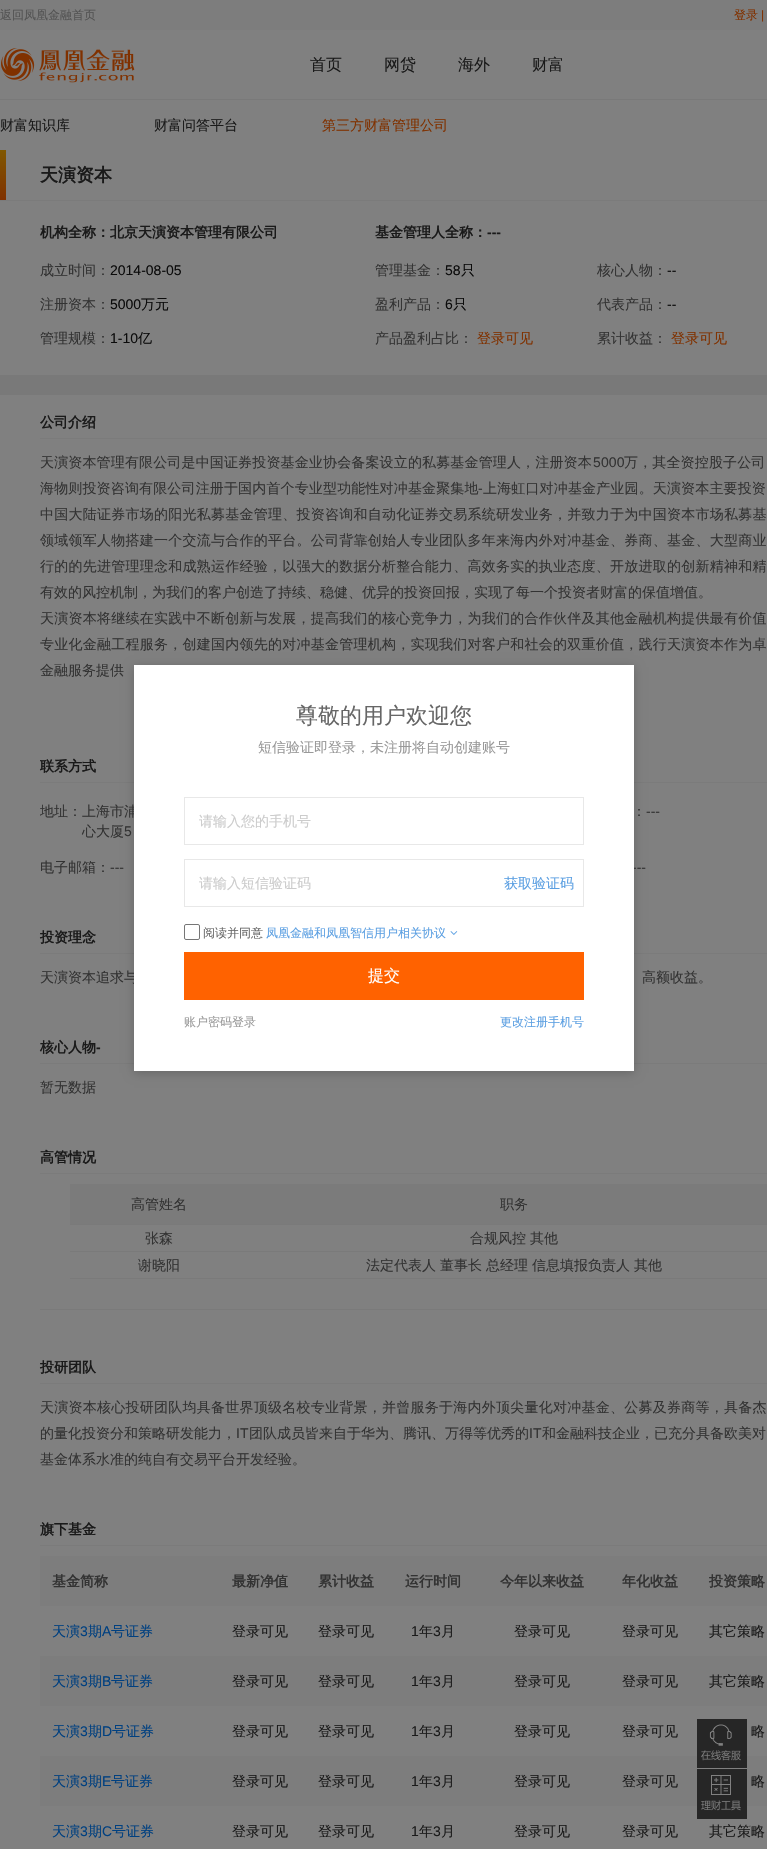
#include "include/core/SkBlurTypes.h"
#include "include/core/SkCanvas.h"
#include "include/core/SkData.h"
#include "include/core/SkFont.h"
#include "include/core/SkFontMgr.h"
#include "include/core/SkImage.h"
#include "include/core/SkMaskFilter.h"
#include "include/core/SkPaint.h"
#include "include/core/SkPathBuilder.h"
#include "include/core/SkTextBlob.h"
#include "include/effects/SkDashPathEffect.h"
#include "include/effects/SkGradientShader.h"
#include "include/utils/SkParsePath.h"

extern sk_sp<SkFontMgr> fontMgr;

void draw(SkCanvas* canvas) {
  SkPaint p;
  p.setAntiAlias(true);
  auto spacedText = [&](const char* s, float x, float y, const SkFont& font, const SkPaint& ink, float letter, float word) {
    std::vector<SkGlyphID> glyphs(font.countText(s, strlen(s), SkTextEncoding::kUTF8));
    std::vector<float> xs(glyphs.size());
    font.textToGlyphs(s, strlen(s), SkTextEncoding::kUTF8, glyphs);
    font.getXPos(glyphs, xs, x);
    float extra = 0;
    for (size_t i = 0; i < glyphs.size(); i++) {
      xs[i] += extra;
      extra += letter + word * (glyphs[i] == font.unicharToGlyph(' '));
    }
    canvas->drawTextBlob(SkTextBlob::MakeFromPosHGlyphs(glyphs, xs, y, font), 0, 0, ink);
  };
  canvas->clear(SkColorSetRGB(121, 121, 121));
  p.setColor(SkColorSetRGB(125, 125, 125));
  canvas->drawRect(SkRect::MakeLTRB(0, 0, 767, 30), p);
  p.setColor(SkColorSetRGB(128, 128, 128));
  canvas->drawRect(SkRect::MakeLTRB(0, 30, 767, 99), p);
  canvas->drawImageRect(SkImages::DeferredFromEncodedData(SkData::MakeFromFileName("images/1.png")), SkRect::MakeLTRB(1, 48, 135, 83), SkSamplingOptions());
  canvas->drawRect(SkRect::MakeLTRB(0, 100, 767, 375), p);
  p.setColor(SkColorSetRGB(123, 123, 123));
  canvas->drawRect(SkRect::MakeLTRB(0, 200, 767, 201), p);
  {
    const SkColor colors[] = {SkColorSetRGB(128, 49, 0), SkColorSetRGB(128, 88, 0)};
    const float stops[] = {0, 1};
    const SkPoint ends[] = {{3, 200}, {3, 150}};
    p.setShader(SkGradientShader::MakeLinear(ends, colors, stops, 2, SkTileMode::kClamp));
    p.setAlpha(255);
  }
  canvas->drawRect(SkRect::MakeLTRB(0, 150, 6, 200), p);
  p.setShader(nullptr);
  p.setColor(SkColorSetRGB(128, 128, 128));
  canvas->drawRect(SkRect::MakeLTRB(0, 395, 767, 1849), p);
  p.setColor(SkColorSetRGB(123, 123, 123));
  canvas->drawRect(SkRect::MakeLTRB(40, 438, 767, 439), p);
  canvas->drawRect(SkRect::MakeLTRB(40, 782, 767, 783), p);
  canvas->drawRect(SkRect::MakeLTRB(40, 953, 767, 954), p);
  canvas->drawRect(SkRect::MakeLTRB(40, 1063, 767, 1064), p);
  canvas->drawRect(SkRect::MakeLTRB(40, 1173, 767, 1174), p);
  p.setColor(SkColorSetRGB(122, 122, 122));
  canvas->drawRect(SkRect::MakeLTRB(40, 1309, 767, 1310), p);
  p.setColor(SkColorSetRGB(123, 123, 123));
  canvas->drawRect(SkRect::MakeLTRB(70, 1184, 767, 1224), p);
  p.setColor(SkColorSetRGB(122, 122, 122));
  canvas->drawRect(SkRect::MakeLTRB(70, 1224, 767, 1225), p);
  canvas->drawRect(SkRect::MakeLTRB(70, 1251, 767, 1252), p);
  canvas->drawRect(SkRect::MakeLTRB(70, 1278, 767, 1279), p);
  p.setColor(SkColorSetRGB(123, 123, 123));
  canvas->drawRect(SkRect::MakeLTRB(40, 1383, 767, 1384), p);
  canvas->drawRect(SkRect::MakeLTRB(40, 1545, 767, 1546), p);
  p.setColor(SkColorSetRGB(125, 125, 125));
  canvas->drawRect(SkRect::MakeLTRB(40, 1556, 767, 1606), p);
  canvas->drawRect(SkRect::MakeLTRB(40, 1656, 767, 1706), p);
  canvas->drawRect(SkRect::MakeLTRB(40, 1756, 767, 1806), p);
  p.setColor(SkColorSetARGB(51, 0, 0, 0));
  p.setMaskFilter(SkMaskFilter::MakeBlur(kNormal_SkBlurStyle, 5));
  canvas->drawRect(SkRect::MakeLTRB(134, 667, 634, 1073), p);
  p.setMaskFilter(nullptr);
  canvas->drawImageRect(SkImages::DeferredFromEncodedData(SkData::MakeFromFileName("images/3.png")), SkRect::MakeLTRB(697, 1719, 747, 1768), SkSamplingOptions());
  p.setColor(SkColorSetRGB(128, 128, 128));
  canvas->drawRect(SkRect::MakeLTRB(697, 1768, 747, 1769), p);
  canvas->drawImageRect(SkImages::DeferredFromEncodedData(SkData::MakeFromFileName("images/4.png")), SkRect::MakeLTRB(697, 1769, 747, 1819), SkSamplingOptions());
  SkFont font1(fontMgr->matchFamilyStyle("WenQuanYi Zen Hei", SkFontStyle(500, SkFontStyle::kNormal_Width, SkFontStyle::kUpright_Slant)), 12);
  font1.setSubpixel(true);
  p.setColor(SkColorSetRGB(83, 83, 83));
  canvas->drawString("返回凤凰金融首页", 0, 19, font1, p);
  p.setColor(SkColorSetRGB(128, 49, 0));
  canvas->drawString("登录", 734, 19, font1, p);
  SkFont font2(fontMgr->matchFamilyStyle("Liberation Sans", SkFontStyle::Normal()), 12);
  font2.setSubpixel(true);
  canvas->drawString("|", 761, 19, font2, p);
  SkFont font3(fontMgr->matchFamilyStyle("WenQuanYi Zen Hei", SkFontStyle(500, SkFontStyle::kNormal_Width, SkFontStyle::kUpright_Slant)), 16);
  font3.setSubpixel(true);
  p.setColor(SkColorSetRGB(26, 26, 26));
  canvas->drawString("首页", 310, 70, font3, p);
  canvas->drawString("网贷", 384, 70, font3, p);
  canvas->drawString("海外", 458, 70, font3, p);
  canvas->drawString("财富", 532, 70, font3, p);
  SkFont font4(fontMgr->matchFamilyStyle("WenQuanYi Zen Hei", SkFontStyle(500, SkFontStyle::kNormal_Width, SkFontStyle::kUpright_Slant)), 14);
  font4.setSubpixel(true);
  canvas->drawString("财富知识库", 0, 130, font4, p);
  canvas->drawString("财富问答平台", 154, 130, font4, p);
  p.setColor(SkColorSetRGB(128, 49, 0));
  canvas->drawString("第三方财富管理公司", 322, 130, font4, p);
  SkFont font5(fontMgr->matchFamilyStyle("WenQuanYi Zen Hei", SkFontStyle::Bold()), 18);
  font5.setSubpixel(true);
  p.setColor(SkColorSetRGB(26, 26, 26));
  canvas->drawString("天演资本", 40, 181, font5, p);
  SkFont font6(fontMgr->matchFamilyStyle("WenQuanYi Zen Hei", SkFontStyle::Bold()), 14);
  font6.setSubpixel(true);
  canvas->drawString("机构全称：北京天演资本管理有限公司", 40, 237, font6, p);
  canvas->drawString("基金管理人全称：", 375, 237, font6, p);
  SkFont font7(fontMgr->matchFamilyStyle("Liberation Sans", SkFontStyle::Bold()), 14);
  font7.setSubpixel(true);
  canvas->drawString("---", 487, 237, font7, p);
  p.setColor(SkColorSetRGB(51, 51, 51));
  canvas->drawString("成立时间：", 40, 275, font4, p);
  SkFont font8(fontMgr->matchFamilyStyle("Liberation Sans", SkFontStyle::Normal()), 14);
  font8.setSubpixel(true);
  p.setColor(SkColorSetRGB(11, 11, 11));
  canvas->drawString("2014-08-05", 110, 275, font8, p);
  p.setColor(SkColorSetRGB(51, 51, 51));
  canvas->drawString("管理基金：", 375, 275, font4, p);
  p.setColor(SkColorSetRGB(11, 11, 11));
  canvas->drawString("58", 445, 275, font8, p);
  canvas->drawString("只", 461, 275, font4, p);
  p.setColor(SkColorSetRGB(51, 51, 51));
  canvas->drawString("核心人物：", 597, 275, font4, p);
  p.setColor(SkColorSetRGB(11, 11, 11));
  canvas->drawString("--", 667, 275, font8, p);
  p.setColor(SkColorSetRGB(51, 51, 51));
  canvas->drawString("注册资本：", 40, 309, font4, p);
  p.setColor(SkColorSetRGB(11, 11, 11));
  canvas->drawString("5000", 110, 309, font8, p);
  canvas->drawString("万元", 141, 309, font4, p);
  p.setColor(SkColorSetRGB(51, 51, 51));
  canvas->drawString("盈利产品：", 375, 309, font4, p);
  p.setColor(SkColorSetRGB(11, 11, 11));
  canvas->drawString("6", 445, 309, font8, p);
  canvas->drawString("只", 453, 309, font4, p);
  p.setColor(SkColorSetRGB(51, 51, 51));
  canvas->drawString("代表产品：", 597, 309, font4, p);
  p.setColor(SkColorSetRGB(11, 11, 11));
  canvas->drawString("--", 667, 309, font8, p);
  p.setColor(SkColorSetRGB(51, 51, 51));
  canvas->drawString("管理规模：", 40, 343, font4, p);
  p.setColor(SkColorSetRGB(11, 11, 11));
  canvas->drawString("1-10", 110, 343, font8, p);
  canvas->drawString("亿", 138, 343, font4, p);
  p.setColor(SkColorSetRGB(51, 51, 51));
  canvas->drawString("产品盈利占比：", 375, 343, font4, p);
  p.setColor(SkColorSetRGB(128, 49, 0));
  canvas->drawString("登录可见", 477, 343, font4, p);
  p.setColor(SkColorSetRGB(51, 51, 51));
  canvas->drawString("累计收益：", 597, 343, font4, p);
  p.setColor(SkColorSetRGB(128, 49, 0));
  canvas->drawString("登录可见", 671, 343, font4, p);
  p.setColor(SkColorSetRGB(26, 26, 26));
  canvas->drawString("公司介绍", 40, 427, font6, p);
  p.setColor(SkColorSetRGB(51, 51, 51));
  spacedText("天演资本管理有限公司是中国证券投资基金业协会备案设立的私募基金管理人，注册资本", 40, 467, font4, p, 0.15f, 0);
  spacedText("5000", 593, 467, font8, p, 0.15f, 0);
  spacedText("万，其全资控股子公司", 624, 467, font4, p, 0.15f, 0);
  spacedText("海物则投资咨询有限公司注册于国内首个专业型功能性对冲基金聚集地", 40, 493, font4, p, 0.15f, 0);
  spacedText("-", 478, 493, font8, p, 0.15f, 0);
  spacedText("上海虹口对冲基金产业园。天演资本主要投资", 483, 493, font4, p, 0.15f, 0);
  spacedText("中国大陆证券市场的阳光私募基金管理、投资咨询和自动化证券交易系统研发业务，并致力于为中国资本市场私募基", 40, 519, font4, p, 0.25f, 0);
  spacedText("领域领军人物搭建一个交流与合作的平台。公司背靠创始人专业团队多年来海内外对冲基金、券商、基金、大型商业", 40, 545, font4, p, 0.25f, 0);
  spacedText("行的的先进管理理念和成熟运作经验，以强大的数据分析整合能力、高效务实的执业态度、开放进取的创新精神和精", 40, 571, font4, p, 0.25f, 0);
  canvas->drawString("有效的风控机制，为我们的客户创造了持续、稳健、优异的投资回报，实现了每一个投资者财富的保值增值。", 40, 597, font4, p);
  spacedText("天演资本将继续在实践中不断创新与发展，提高我们的核心竞争力，为我们的合作伙伴及其他金融机构提供最有价值", 40, 623, font4, p, 0.25f, 0);
  spacedText("专业化金融工程服务，创建国内领先的对冲基金管理机构，实现我们对客户和社会的双重价值，践行天演资本作为卓", 40, 649, font4, p, 0.25f, 0);
  canvas->drawString("金融服务提供", 40, 675, font4, p);
  p.setColor(SkColorSetRGB(26, 26, 26));
  canvas->drawString("联系方式", 40, 771, font6, p);
  p.setColor(SkColorSetRGB(51, 51, 51));
  canvas->drawString("地址：上海市浦", 40, 816, font4, p);
  canvas->drawString("心大厦", 82, 836, font4, p);
  canvas->drawString("5", 124, 836, font8, p);
  canvas->drawString("：", 632, 816, font4, p);
  canvas->drawString("---", 646, 816, font8, p);
  canvas->drawString("电子邮箱：", 40, 872, font4, p);
  canvas->drawString("---", 110, 872, font8, p);
  canvas->drawString("---", 632, 872, font8, p);
  p.setColor(SkColorSetRGB(26, 26, 26));
  canvas->drawString("投资理念", 40, 942, font6, p);
  p.setColor(SkColorSetRGB(51, 51, 51));
  canvas->drawString("天演资本追求与", 40, 982, font4, p);
  canvas->drawString("高额收益。", 642, 982, font4, p);
  p.setColor(SkColorSetRGB(26, 26, 26));
  canvas->drawString("核心人物", 40, 1052, font6, p);
  canvas->drawString("-", 96, 1052, font7, p);
  p.setColor(SkColorSetRGB(51, 51, 51));
  canvas->drawString("暂无数据", 40, 1092, font4, p);
  p.setColor(SkColorSetRGB(26, 26, 26));
  canvas->drawString("高管情况", 40, 1162, font6, p);
  p.setColor(SkColorSetRGB(51, 51, 51));
  canvas->drawString("高管姓名", 131, 1209, font4, p);
  canvas->drawString("职务", 500, 1209, font4, p);
  canvas->drawString("张森", 145, 1243, font4, p);
  canvas->drawString("合规风控", 470, 1243, font4, p);
  canvas->drawString("其他", 530, 1243, font4, p);
  canvas->drawString("谢晓阳", 138, 1270, font4, p);
  canvas->drawString("法定代表人", 366, 1270, font4, p);
  canvas->drawString("董事长", 440, 1270, font4, p);
  canvas->drawString("总经理", 486, 1270, font4, p);
  canvas->drawString("信息填报负责人", 532, 1270, font4, p);
  canvas->drawString("其他", 634, 1270, font4, p);
  p.setColor(SkColorSetRGB(26, 26, 26));
  canvas->drawString("投研团队", 40, 1372, font6, p);
  p.setColor(SkColorSetRGB(51, 51, 51));
  spacedText("天演资本核心投研团队均具备世界顶级名校专业背景，并曾服务于海内外顶尖量化对冲基金、公募及券商等，具备杰", 40, 1412, font4, p, 0.25f, 0);
  canvas->drawString("的量化投资分和策略研发能力，", 40, 1438, font4, p);
  canvas->drawString("IT", 236, 1438, font8, p);
  canvas->drawString("团队成员皆来自于华为、腾讯、万得等优秀的", 249, 1438, font4, p);
  canvas->drawString("IT", 529, 1438, font8, p);
  canvas->drawString("和金融科技企业，已充分具备欧美对", 542, 1438, font4, p);
  canvas->drawString("基金体系水准的纯自有交易平台开发经验。", 40, 1464, font4, p);
  p.setColor(SkColorSetRGB(26, 26, 26));
  canvas->drawString("旗下基金", 40, 1534, font6, p);
  p.setColor(SkColorSetRGB(51, 51, 51));
  canvas->drawString("基金简称", 52, 1586, font6, p);
  canvas->drawString("最新净值", 232, 1586, font6, p);
  canvas->drawString("累计收益", 318, 1586, font6, p);
  canvas->drawString("运行时间", 405, 1586, font6, p);
  canvas->drawString("今年以来收益", 500, 1586, font6, p);
  canvas->drawString("年化收益", 622, 1586, font6, p);
  canvas->drawString("投资策略", 709, 1586, font6, p);
  p.setColor(SkColorSetRGB(0, 64, 128));
  canvas->drawString("天演", 52, 1636, font4, p);
  canvas->drawString("3", 80, 1636, font8, p);
  canvas->drawString("期", 88, 1636, font4, p);
  canvas->drawString("A", 102, 1636, font8, p);
  canvas->drawString("号证券", 111, 1636, font4, p);
  p.setColor(SkColorSetRGB(26, 26, 26));
  canvas->drawString("登录可见", 232, 1636, font4, p);
  canvas->drawString("登录可见", 318, 1636, font4, p);
  canvas->drawString("1", 411, 1636, font8, p);
  canvas->drawString("年", 419, 1636, font4, p);
  canvas->drawString("3", 433, 1636, font8, p);
  canvas->drawString("月", 441, 1636, font4, p);
  canvas->drawString("登录可见", 514, 1636, font4, p);
  canvas->drawString("登录可见", 622, 1636, font4, p);
  canvas->drawString("其它策略", 709, 1636, font4, p);
  p.setColor(SkColorSetRGB(0, 64, 128));
  canvas->drawString("天演", 52, 1686, font4, p);
  canvas->drawString("3", 80, 1686, font8, p);
  canvas->drawString("期", 88, 1686, font4, p);
  canvas->drawString("B", 102, 1686, font8, p);
  canvas->drawString("号证券", 111, 1686, font4, p);
  p.setColor(SkColorSetRGB(26, 26, 26));
  canvas->drawString("登录可见", 232, 1686, font4, p);
  canvas->drawString("登录可见", 318, 1686, font4, p);
  canvas->drawString("1", 411, 1686, font8, p);
  canvas->drawString("年", 419, 1686, font4, p);
  canvas->drawString("3", 433, 1686, font8, p);
  canvas->drawString("月", 441, 1686, font4, p);
  canvas->drawString("登录可见", 514, 1686, font4, p);
  canvas->drawString("登录可见", 622, 1686, font4, p);
  canvas->drawString("其它策略", 709, 1686, font4, p);
  p.setColor(SkColorSetRGB(0, 64, 128));
  canvas->drawString("天演", 52, 1736, font4, p);
  canvas->drawString("3", 80, 1736, font8, p);
  canvas->drawString("期", 88, 1736, font4, p);
  canvas->drawString("D", 102, 1736, font8, p);
  canvas->drawString("号证券", 112, 1736, font4, p);
  p.setColor(SkColorSetRGB(26, 26, 26));
  canvas->drawString("登录可见", 232, 1736, font4, p);
  canvas->drawString("登录可见", 318, 1736, font4, p);
  canvas->drawString("1", 411, 1736, font8, p);
  canvas->drawString("年", 419, 1736, font4, p);
  canvas->drawString("3", 433, 1736, font8, p);
  canvas->drawString("月", 441, 1736, font4, p);
  canvas->drawString("登录可见", 514, 1736, font4, p);
  canvas->drawString("登录可见", 622, 1736, font4, p);
  canvas->drawString("略", 751, 1736, font4, p);
  p.setColor(SkColorSetRGB(0, 64, 128));
  canvas->drawString("天演", 52, 1786, font4, p);
  canvas->drawString("3", 80, 1786, font8, p);
  canvas->drawString("期", 88, 1786, font4, p);
  canvas->drawString("E", 102, 1786, font8, p);
  canvas->drawString("号证券", 111, 1786, font4, p);
  p.setColor(SkColorSetRGB(26, 26, 26));
  canvas->drawString("登录可见", 232, 1786, font4, p);
  canvas->drawString("登录可见", 318, 1786, font4, p);
  canvas->drawString("1", 411, 1786, font8, p);
  canvas->drawString("年", 419, 1786, font4, p);
  canvas->drawString("3", 433, 1786, font8, p);
  canvas->drawString("月", 441, 1786, font4, p);
  canvas->drawString("登录可见", 514, 1786, font4, p);
  canvas->drawString("登录可见", 622, 1786, font4, p);
  canvas->drawString("略", 751, 1786, font4, p);
  p.setColor(SkColorSetRGB(0, 64, 128));
  canvas->drawString("天演", 52, 1836, font4, p);
  canvas->drawString("3", 80, 1836, font8, p);
  canvas->drawString("期", 88, 1836, font4, p);
  canvas->drawString("C", 102, 1836, font8, p);
  canvas->drawString("号证券", 112, 1836, font4, p);
  p.setColor(SkColorSetRGB(26, 26, 26));
  canvas->drawString("登录可见", 232, 1836, font4, p);
  canvas->drawString("登录可见", 318, 1836, font4, p);
  canvas->drawString("1", 411, 1836, font8, p);
  canvas->drawString("年", 419, 1836, font4, p);
  canvas->drawString("3", 433, 1836, font8, p);
  canvas->drawString("月", 441, 1836, font4, p);
  canvas->drawString("登录可见", 514, 1836, font4, p);
  canvas->drawString("登录可见", 622, 1836, font4, p);
  canvas->drawString("其它策略", 709, 1836, font4, p);
  p.setColor(SK_ColorWHITE);
  canvas->drawRect(SkRect::MakeLTRB(134, 665, 634, 1071), p);
  SkFont font9(fontMgr->matchFamilyStyle("WenQuanYi Zen Hei", SkFontStyle(500, SkFontStyle::kNormal_Width, SkFontStyle::kUpright_Slant)), 22);
  font9.setSubpixel(true);
  p.setColor(SkColorSetRGB(102, 102, 102));
  canvas->drawString("尊敬的用户欢迎您", 296, 723, font9, p);
  p.setColor(SkColorSetRGB(153, 153, 153));
  canvas->drawString("短信验证即登录，未注册将自动创建账号", 258, 752, font4, p);
  p.setStyle(SkPaint::kStroke_Style);
  p.setStrokeWidth(1);
  p.setColor(SkColorSetRGB(232, 232, 232));
  canvas->drawRect(SkRect::MakeLTRB(184.5f, 797.5f, 583.5f, 844.5f), p);
  p.setStyle(SkPaint::kFill_Style);
  p.setColor(SkColorSetRGB(204, 204, 204));
  canvas->drawString("请输入您的手机号", 199, 826, font4, p);
  p.setStyle(SkPaint::kStroke_Style);
  p.setColor(SkColorSetRGB(232, 232, 232));
  canvas->drawRect(SkRect::MakeLTRB(184.5f, 859.5f, 583.5f, 906.5f), p);
  p.setStyle(SkPaint::kFill_Style);
  p.setColor(SkColorSetRGB(204, 204, 204));
  canvas->drawString("请输入短信验证码", 199, 888, font4, p);
  p.setColor(SkColorSetRGB(91, 159, 226));
  canvas->drawString("获取验证码", 504, 888, font4, p);
  p.setStyle(SkPaint::kStroke_Style);
  p.setColor(SkColorSetRGB(118, 118, 118));
  canvas->drawRoundRect(SkRect::MakeLTRB(184.5f, 924.5f, 199.5f, 939.5f), 1.5f, 1.5f, p);
  p.setStyle(SkPaint::kFill_Style);
  p.setColor(SkColorSetRGB(102, 102, 102));
  canvas->drawString("阅读并同意", 203, 937, font1, p);
  p.setColor(SkColorSetRGB(91, 159, 226));
  canvas->drawString("凤凰金融和凤凰智信用户相关协议", 266, 937, font1, p);
  canvas->drawImageRect(SkImages::DeferredFromEncodedData(SkData::MakeFromFileName("images/2.png")), SkRect::MakeLTRB(450, 931, 458, 935), SkSamplingOptions());
  p.setColor(SkColorSetRGB(255, 98, 0));
  canvas->drawRect(SkRect::MakeLTRB(184, 952, 584, 1000), p);
  p.setColor(SK_ColorWHITE);
  canvas->drawString("提交", 368, 981, font3, p);
  p.setColor(SkColorSetRGB(153, 153, 153));
  canvas->drawString("账户密码登录", 184, 1026, font1, p);
  p.setColor(SkColorSetRGB(91, 159, 226));
  canvas->drawString("更改注册手机号", 500, 1026, font1, p);
}
